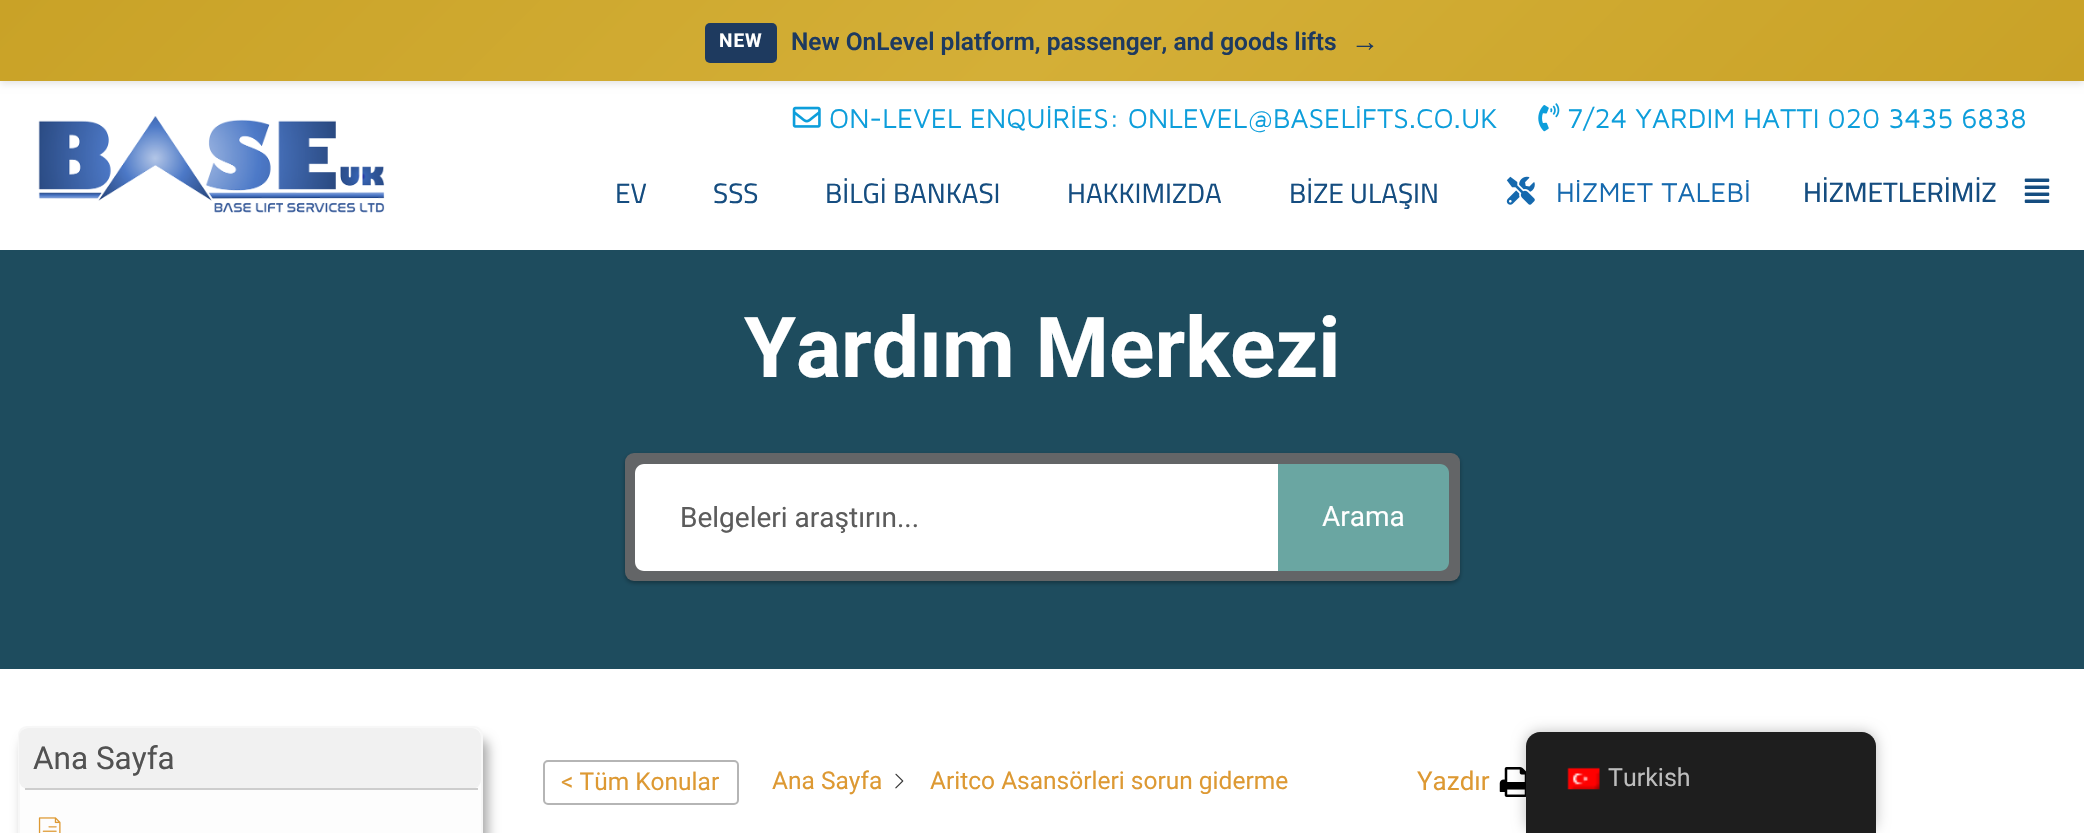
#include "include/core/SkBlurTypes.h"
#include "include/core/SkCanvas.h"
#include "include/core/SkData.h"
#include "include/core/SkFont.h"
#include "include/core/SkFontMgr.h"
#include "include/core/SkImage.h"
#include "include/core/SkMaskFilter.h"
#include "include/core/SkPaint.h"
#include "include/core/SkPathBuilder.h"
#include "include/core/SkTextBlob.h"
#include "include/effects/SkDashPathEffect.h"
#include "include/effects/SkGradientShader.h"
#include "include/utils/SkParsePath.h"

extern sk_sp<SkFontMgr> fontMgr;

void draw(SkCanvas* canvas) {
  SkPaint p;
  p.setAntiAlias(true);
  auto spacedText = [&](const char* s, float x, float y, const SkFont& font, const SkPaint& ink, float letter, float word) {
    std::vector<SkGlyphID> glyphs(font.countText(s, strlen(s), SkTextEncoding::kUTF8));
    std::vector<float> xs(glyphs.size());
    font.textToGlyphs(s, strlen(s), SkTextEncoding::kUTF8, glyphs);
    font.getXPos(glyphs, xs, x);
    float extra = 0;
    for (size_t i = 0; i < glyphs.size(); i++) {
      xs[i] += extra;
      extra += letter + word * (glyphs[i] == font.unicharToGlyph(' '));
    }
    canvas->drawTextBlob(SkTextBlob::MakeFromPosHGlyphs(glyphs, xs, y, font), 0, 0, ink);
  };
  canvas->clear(SK_ColorWHITE);
  p.setColor(SkColorSetARGB(26, 0, 0, 0));
  p.setMaskFilter(SkMaskFilter::MakeBlur(kNormal_SkBlurStyle, 3.5f));
  canvas->drawRect(SkRect::MakeLTRB(0, 4, 2084, 84), p);
  p.setMaskFilter(nullptr);
  {
    const SkColor colors[] = {SkColorSetRGB(201, 162, 39), SkColorSetRGB(212, 175, 55), SkColorSetRGB(201, 162, 39)};
    const float stops[] = {0, 0.5f, 1};
    const SkPoint ends[] = {{501, -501}, {1583, 581}};
    p.setShader(SkGradientShader::MakeLinear(ends, colors, stops, 3, SkTileMode::kClamp));
    p.setAlpha(255);
  }
  canvas->drawRect(SkRect::MakeLTRB(0, 0, 2084, 81), p);
  p.setShader(nullptr);
  p.setColor(SkColorSetRGB(30, 58, 95));
  canvas->drawRoundRect(SkRect::MakeLTRB(705, 23, 777, 63), 5, 5, p);
  canvas->drawImageRect(SkImages::DeferredFromEncodedData(SkData::MakeFromFileName("images/1.png")), SkRect::MakeLTRB(38, 116, 385, 213), SkSamplingOptions());
  canvas->drawImageRect(SkImages::DeferredFromEncodedData(SkData::MakeFromFileName("images/2.png")), SkRect::MakeLTRB(792, 106, 821, 128), SkSamplingOptions());
  canvas->drawImageRect(SkImages::DeferredFromEncodedData(SkData::MakeFromFileName("images/3.png")), SkRect::MakeLTRB(1538, 103, 1560, 132), SkSamplingOptions());
  canvas->drawImageRect(SkImages::DeferredFromEncodedData(SkData::MakeFromFileName("images/4.png")), SkRect::MakeLTRB(1506, 176, 1535, 205), SkSamplingOptions());
  canvas->drawImageRect(SkImages::DeferredFromEncodedData(SkData::MakeFromFileName("images/5.png")), SkRect::MakeLTRB(2024, 178, 2050, 203), SkSamplingOptions());
  p.setColor(SkColorSetRGB(30, 76, 94));
  canvas->drawRect(SkRect::MakeLTRB(0, 250, 2084, 669), p);
  p.setColor(SkColorSetARGB(82, 0, 0, 0));
  p.setMaskFilter(SkMaskFilter::MakeBlur(kNormal_SkBlurStyle, 2));
  canvas->drawRoundRect(SkRect::MakeLTRB(625, 455, 1460, 583), 9, 9, p);
  p.setMaskFilter(nullptr);
  p.setColor(SkColorSetRGB(99, 101, 103));
  canvas->drawRoundRect(SkRect::MakeLTRB(625, 453, 1460, 581), 9, 9, p);
  p.setColor(SK_ColorWHITE);
  canvas->drawPath(SkPathBuilder().moveTo(644, 464).lineTo(1278, 464).lineTo(1278, 571).lineTo(644, 571).cubicTo(639, 571, 635, 567, 635, 562).lineTo(635, 473).cubicTo(635, 468, 639, 464, 644, 464).close().detach(), p);
  p.setColor(SkColorSetRGB(106, 166, 162));
  canvas->drawPath(SkPathBuilder().moveTo(1278, 464).lineTo(1440, 464).cubicTo(1445, 464, 1449, 468, 1449, 473).lineTo(1449, 562).cubicTo(1449, 567, 1445, 571, 1440, 571).lineTo(1278, 571).close().detach(), p);
  p.setColor(SkColorSetARGB(87, 0, 0, 0));
  p.setMaskFilter(SkMaskFilter::MakeBlur(kNormal_SkBlurStyle, 6));
  canvas->drawRoundRect(SkRect::MakeLTRB(23, 739, 488, 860), 9, 9, p);
  p.setMaskFilter(nullptr);
  p.setColor(SkColorSetRGB(253, 253, 253));
  canvas->drawRoundRect(SkRect::MakeLTRB(19, 727, 482, 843), 8, 8, p);
  p.setStyle(SkPaint::kStroke_Style);
  p.setStrokeWidth(2);
  p.setColor(SkColorSetRGB(247, 247, 247));
  canvas->drawRoundRect(SkRect::MakeLTRB(19, 727, 482, 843), 8, 8, p);
  p.setStyle(SkPaint::kFill_Style);
  p.setColor(SkColorSetRGB(241, 241, 241));
  canvas->drawRoundRect(SkRect::MakeLTRB(19, 728, 481, 789), 9, 9, p);
  p.setColor(SkColorSetRGB(205, 205, 205));
  canvas->drawRect(SkRect::MakeLTRB(25, 788, 478, 790), p);
  canvas->drawImageRect(SkImages::DeferredFromEncodedData(SkData::MakeFromFileName("images/6.png")), SkRect::MakeLTRB(38, 817, 61, 833), SkSamplingOptions());
  p.setStyle(SkPaint::kStroke_Style);
  p.setColor(SkColorSetRGB(181, 181, 181));
  canvas->drawRoundRect(SkRect::MakeLTRB(544, 761, 738, 804), 4, 4, p);
  canvas->drawImageRect(SkImages::DeferredFromEncodedData(SkData::MakeFromFileName("images/7.png")), SkRect::MakeLTRB(895, 773, 904, 789), SkSamplingOptions());
  canvas->drawImageRect(SkImages::DeferredFromEncodedData(SkData::MakeFromFileName("images/8.png")), SkRect::MakeLTRB(1499, 767, 1526, 797), SkSamplingOptions());
  p.setStyle(SkPaint::kFill_Style);
  p.setColor(SkColorSetARGB(64, 0, 0, 0));
  p.setMaskFilter(SkMaskFilter::MakeBlur(kNormal_SkBlurStyle, 7));
  canvas->drawRoundRect(SkRect::MakeLTRB(1526, 732, 1876, 833), 14, 14, p);
  p.setMaskFilter(nullptr);
  p.setColor(SkColorSetRGB(30, 30, 30));
  canvas->drawPath(SkPathBuilder().moveTo(1540, 732).lineTo(1862, 732).cubicTo(1869.5f, 732, 1876, 738.5f, 1876, 746).lineTo(1876, 833).lineTo(1526, 833).lineTo(1526, 746).cubicTo(1526, 738.5f, 1532.5f, 732, 1540, 732).close().detach(), p);
  canvas->drawImageRect(SkImages::DeferredFromEncodedData(SkData::MakeFromFileName("images/9.png")), SkRect::MakeLTRB(1567, 767, 1600, 790), SkSamplingOptions());
  SkFont font1(fontMgr->matchFamilyStyle("Roboto", SkFontStyle::Bold()), 19);
  font1.setSubpixel(true);
  p.setColor(SK_ColorWHITE);
  spacedText("NEW", 719, 47, font1, p, 1, 0);
  SkFont font2(fontMgr->matchFamilyStyle("Roboto", SkFontStyle(600, SkFontStyle::kNormal_Width, SkFontStyle::kUpright_Slant)), 24.5f);
  font2.setSubpixel(true);
  p.setColor(SkColorSetRGB(30, 58, 95));
  canvas->drawString("New OnLevel platform, passenger, and goods lifts", 791, 50, font2, p);
  SkFont font3(fontMgr->matchFamilyStyle("Liberation Sans", SkFontStyle::Bold()), 28);
  font3.setSubpixel(true);
  canvas->drawString("→", 1351, 51, font3, p);
  SkFont font4(fontMgr->matchFamilyStyle("Maven Pro", SkFontStyle::Normal()), 28);
  font4.setSubpixel(true);
  p.setColor(SkColorSetRGB(13, 158, 219));
  canvas->drawString("ON-LEVEL ENQUİRİES: ONLEVEL@BASELİFTS.CO.UK", 829, 128, font4, p);
  canvas->drawString("7/24 YARDIM HATTI 020 3435 6838", 1567, 128, font4, p);
  SkFont font5(fontMgr->matchFamilyStyle("Cairo", SkFontStyle::Normal()), 28);
  font5.setSubpixel(true);
  p.setColor(SkColorSetRGB(21, 77, 128));
  canvas->drawString("EV", 615, 203, font5, p);
  canvas->drawString("SSS", 713, 203, font5, p);
  canvas->drawString("BİLGİ BANKASI", 825, 203, font5, p);
  canvas->drawString("HAKKIMIZDA", 1067, 203, font5, p);
  canvas->drawString("BİZE ULAŞIN", 1289, 203, font5, p);
  p.setColor(SkColorSetRGB(21, 105, 174));
  canvas->drawString("HİZMET TALEBİ", 1556, 202, font4, p);
  SkFont font6(fontMgr->matchFamilyStyle("Cairo", SkFontStyle(500, SkFontStyle::kNormal_Width, SkFontStyle::kUpright_Slant)), 28);
  font6.setSubpixel(true);
  p.setColor(SkColorSetRGB(21, 77, 128));
  canvas->drawString("HİZMETLERİMİZ", 1803, 202, font6, p);
  SkFont font7(fontMgr->matchFamilyStyle("Roboto", SkFontStyle::Bold()), 84);
  font7.setSubpixel(true);
  p.setColor(SK_ColorWHITE);
  canvas->drawString("Yardım Merkezi", 744, 377, font7, p);
  SkFont font8(fontMgr->matchFamilyStyle("Roboto", SkFontStyle::Normal()), 28);
  font8.setSubpixel(true);
  p.setColor(SkColorSetRGB(92, 92, 92));
  canvas->drawString("Belgeleri araştırın...", 680, 527, font8, p);
  p.setColor(SK_ColorWHITE);
  canvas->drawString("Arama", 1322, 526, font8, p);
  SkFont font9(fontMgr->matchFamilyStyle("Roboto", SkFontStyle::Normal()), 31.5f);
  font9.setSubpixel(true);
  p.setColor(SkColorSetRGB(82, 82, 82));
  canvas->drawString("Ana Sayfa", 33, 769, font9, p);
  SkFont font10(fontMgr->matchFamilyStyle("Roboto", SkFontStyle::Normal()), 24.5f);
  font10.setSubpixel(true);
  p.setColor(SkColorSetRGB(221, 153, 51));
  canvas->drawString("< Tüm Konular", 561, 790, font10, p);
  canvas->drawString("Ana Sayfa", 772, 789, font10, p);
  canvas->drawString("Aritco Asansörleri sorun giderme", 930, 789, font10, p);
  SkFont font11(fontMgr->matchFamilyStyle("Roboto", SkFontStyle::Normal()), 26);
  font11.setSubpixel(true);
  canvas->drawString("Yazdır", 1417, 790, font11, p);
  SkFont font12(fontMgr->matchFamilyStyle("Roboto", SkFontStyle::Normal()), 25);
  font12.setSubpixel(true);
  p.setColor(SkColorSetRGB(189, 189, 189));
  canvas->drawString("Turkish", 1608, 786, font12, p);
}
